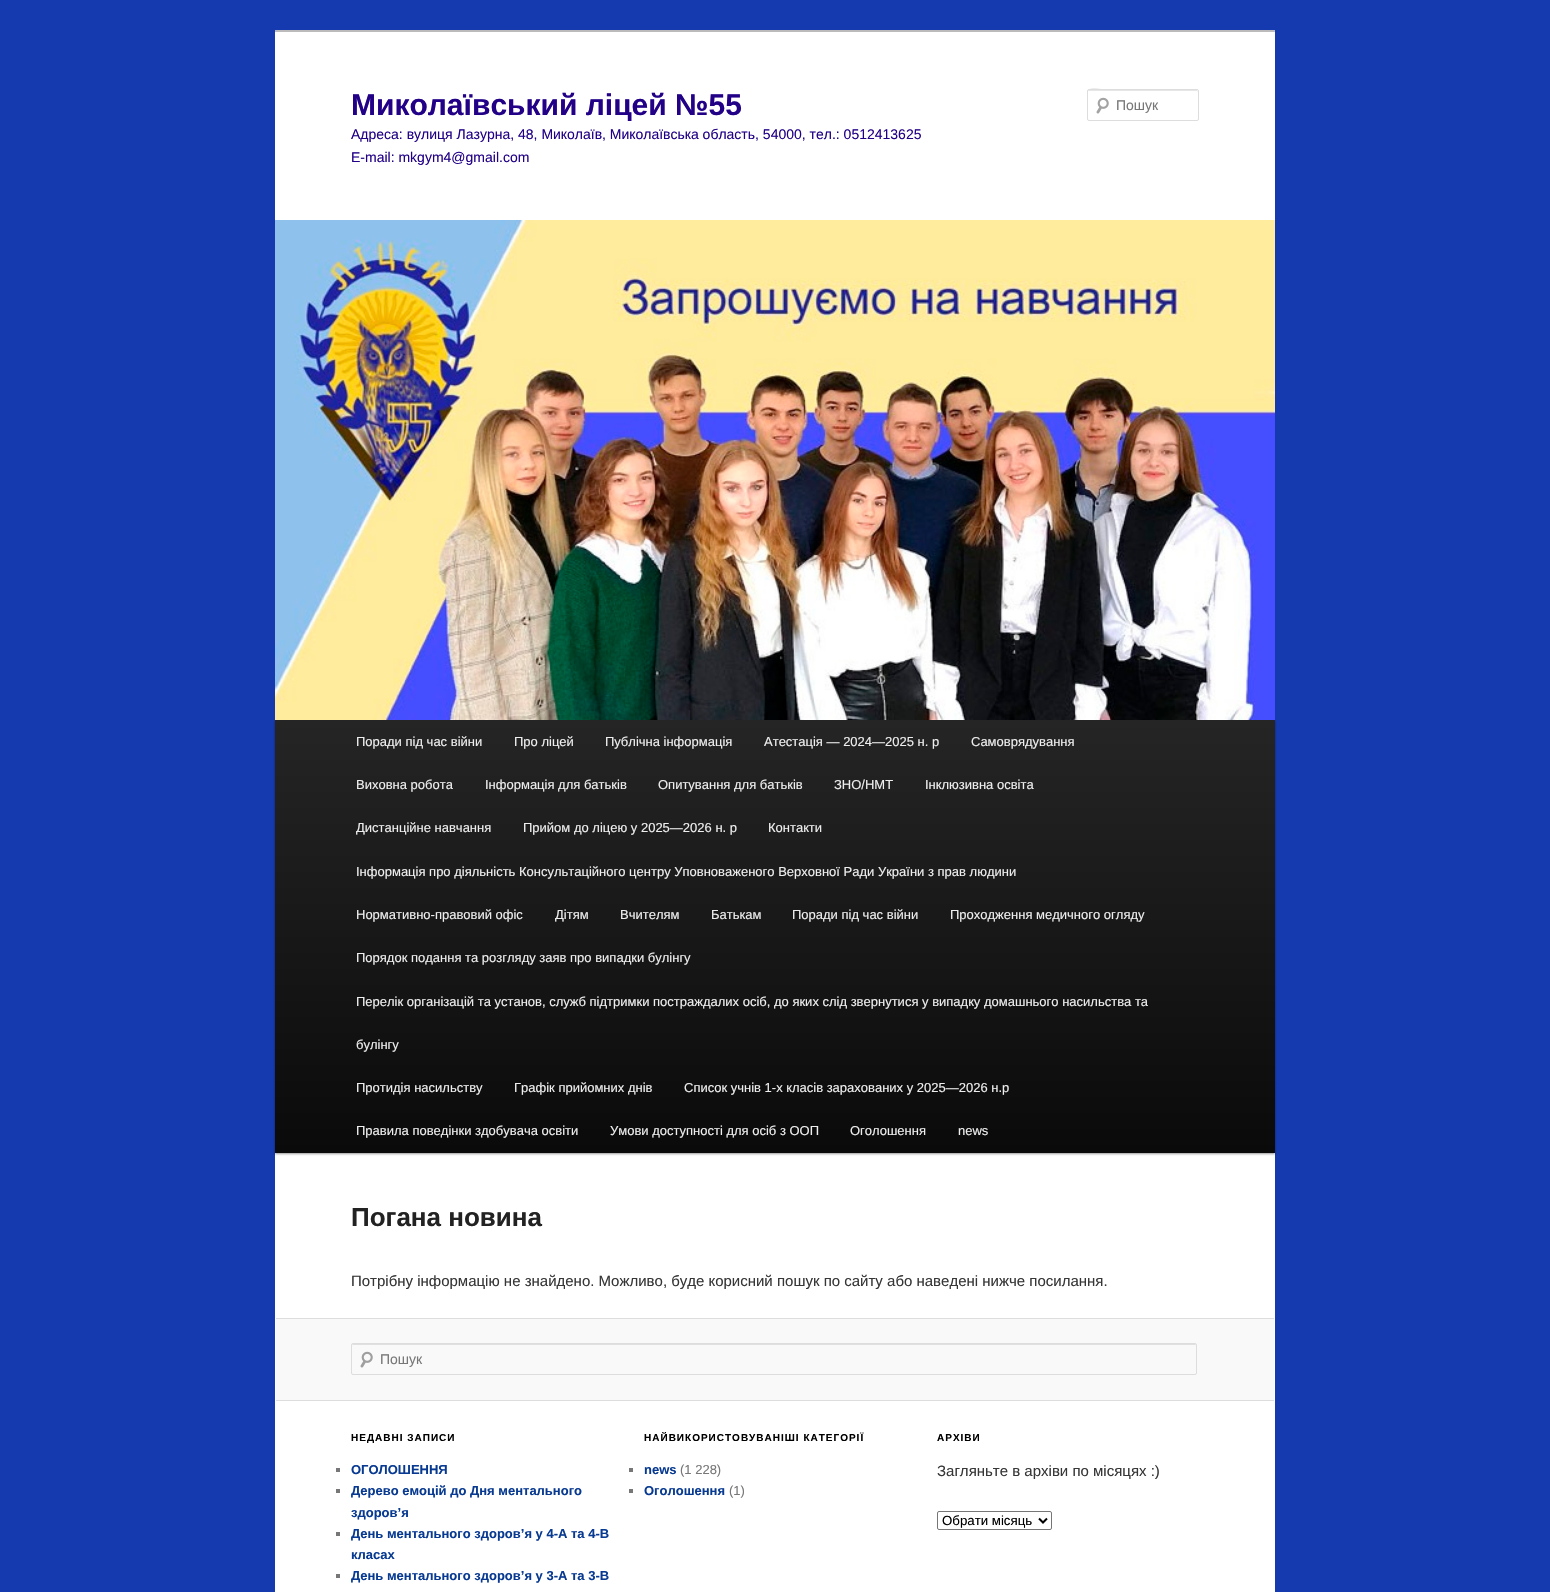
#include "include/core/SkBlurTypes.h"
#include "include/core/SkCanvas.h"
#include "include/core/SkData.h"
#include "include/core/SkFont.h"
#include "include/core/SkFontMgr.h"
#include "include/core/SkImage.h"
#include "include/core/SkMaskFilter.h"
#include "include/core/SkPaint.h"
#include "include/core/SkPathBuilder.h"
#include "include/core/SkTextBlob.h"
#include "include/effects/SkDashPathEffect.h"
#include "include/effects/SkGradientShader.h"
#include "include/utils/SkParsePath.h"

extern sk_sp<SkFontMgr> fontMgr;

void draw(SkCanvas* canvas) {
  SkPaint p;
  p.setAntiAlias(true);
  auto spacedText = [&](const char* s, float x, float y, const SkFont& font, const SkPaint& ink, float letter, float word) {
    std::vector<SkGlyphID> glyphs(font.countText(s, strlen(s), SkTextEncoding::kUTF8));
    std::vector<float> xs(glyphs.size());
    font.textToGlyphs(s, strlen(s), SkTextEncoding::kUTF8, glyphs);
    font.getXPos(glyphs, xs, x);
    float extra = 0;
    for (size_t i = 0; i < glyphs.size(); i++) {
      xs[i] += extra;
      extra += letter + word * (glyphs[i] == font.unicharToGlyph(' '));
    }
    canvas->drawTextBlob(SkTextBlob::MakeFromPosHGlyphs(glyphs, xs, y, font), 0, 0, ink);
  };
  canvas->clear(SkColorSetRGB(21, 57, 175));
  p.setColor(SK_ColorWHITE);
  canvas->drawRect(SkRect::MakeLTRB(275, 32, 1275, 1592), p);
  p.setColor(SkColorSetRGB(187, 187, 187));
  canvas->drawRect(SkRect::MakeLTRB(275, 30, 1275, 32), p);
  canvas->drawImageRect(SkImages::DeferredFromEncodedData(SkData::MakeFromFileName("images/1.png")), SkRect::MakeLTRB(1096, 97, 1109, 114), SkSamplingOptions());
  p.setColor(SkColorSetRGB(230, 230, 230));
  canvas->drawPath(SkPathBuilder().moveTo(1089, 91).lineTo(1198, 91).lineTo(1198, 92).lineTo(1197, 90).lineTo(1107, 90).cubicTo(1103, 90, 1088, 85, 1088, 92).cubicTo(1088, 91, 1088, 91, 1089, 91).close().detach(), p);
  p.setStyle(SkPaint::kStroke_Style);
  p.setStrokeWidth(1);
  p.setColor(SkColorSetRGB(221, 221, 221));
  canvas->drawRoundRect(SkRect::MakeLTRB(1087.5f, 89.5f, 1198.5f, 120.5f), 1.5f, 1.5f, p);
  p.setStyle(SkPaint::kFill_Style);
  p.setColor(SkColorSetARGB(102, 0, 0, 0));
  p.setMaskFilter(SkMaskFilter::MakeBlur(kNormal_SkBlurStyle, 1));
  canvas->drawRect(SkRect::MakeLTRB(275, 721, 1275, 1154), p);
  p.setMaskFilter(nullptr);
  canvas->drawImageRect(SkImages::DeferredFromEncodedData(SkData::MakeFromFileName("images/2.png")), SkRect::MakeLTRB(275, 220, 1275, 720), SkSamplingOptions());
  {
    const SkColor colors[] = {SkColorSetRGB(37, 37, 37), SkColorSetRGB(10, 10, 10)};
    const float stops[] = {0, 1};
    const SkPoint ends[] = {{775, 720}, {775, 1153}};
    p.setShader(SkGradientShader::MakeLinear(ends, colors, stops, 2, SkTileMode::kClamp));
    p.setAlpha(255);
  }
  canvas->drawRect(SkRect::MakeLTRB(275, 720, 1275, 1153), p);
  p.setShader(nullptr);
  p.setColor(SkColorSetRGB(249, 249, 249));
  canvas->drawRect(SkRect::MakeLTRB(276, 1319, 1274, 1400), p);
  p.setColor(SkColorSetRGB(221, 221, 221));
  canvas->drawRect(SkRect::MakeLTRB(276, 1318, 1274, 1319), p);
  canvas->drawRect(SkRect::MakeLTRB(276, 1400, 1274, 1401), p);
  canvas->drawImageRect(SkImages::DeferredFromEncodedData(SkData::MakeFromFileName("images/3.png")), SkRect::MakeLTRB(360, 1351, 373, 1368), SkSamplingOptions());
  p.setColor(SkColorSetRGB(224, 224, 224));
  canvas->drawPath(SkPathBuilder().moveTo(353, 1345).lineTo(1195, 1345).cubicTo(1196, 1345, 1196, 1345, 1196, 1346).lineTo(1196, 1345).lineTo(1195, 1344).lineTo(353, 1344).lineTo(352, 1345).lineTo(352, 1346).cubicTo(352, 1345, 352, 1345, 353, 1345).close().detach(), p);
  p.setStyle(SkPaint::kStroke_Style);
  p.setColor(SkColorSetRGB(221, 221, 221));
  canvas->drawRoundRect(SkRect::MakeLTRB(351.5f, 1343.5f, 1196.5f, 1374.5f), 1.5f, 1.5f, p);
  p.setStyle(SkPaint::kFill_Style);
  p.setColor(SkColorSetRGB(119, 119, 119));
  canvas->drawRect(SkRect::MakeLTRB(336, 1468, 340, 1472), p);
  canvas->drawRect(SkRect::MakeLTRB(336, 1489, 340, 1493), p);
  canvas->drawRect(SkRect::MakeLTRB(336, 1532, 340, 1536), p);
  canvas->drawRect(SkRect::MakeLTRB(336, 1574, 340, 1578), p);
  canvas->drawRect(SkRect::MakeLTRB(629, 1468, 633, 1472), p);
  canvas->drawRect(SkRect::MakeLTRB(629, 1489, 633, 1493), p);
  p.setStyle(SkPaint::kStroke_Style);
  p.setColor(SkColorSetRGB(118, 118, 118));
  canvas->drawRoundRect(SkRect::MakeLTRB(937.5f, 1511.5f, 1051.5f, 1529.5f), 1.5f, 1.5f, p);
  p.setStrokeWidth(2);
  p.setColor(SK_ColorBLACK);
  canvas->drawPath(SkPathBuilder().moveTo(1039, 1518.5f).lineTo(1043, 1522.5f).lineTo(1047, 1518.5f).detach(), p);
  SkFont font1(fontMgr->matchFamilyStyle("Liberation Sans", SkFontStyle::Bold()), 30);
  font1.setSubpixel(true);
  p.setStyle(SkPaint::kFill_Style);
  p.setColor(SkColorSetRGB(34, 1, 135));
  canvas->drawString("Миколаївський ліцей №55", 351, 115, font1, p);
  SkFont font2(fontMgr->matchFamilyStyle("Liberation Sans", SkFontStyle::Normal()), 14);
  font2.setSubpixel(true);
  canvas->drawString("Адреса: вулиця Лазурна, 48, Миколаїв, Миколаївська область, 54000, тел.: 0512413625", 351, 139, font2, p);
  canvas->drawString("E-mail: mkgym4@gmail.com", 351, 162, font2, p);
  p.setColor(SkColorSetRGB(119, 119, 119));
  canvas->drawString("Пошук", 1116, 110, font2, p);
  SkFont font3(fontMgr->matchFamilyStyle("Liberation Sans", SkFontStyle::Normal()), 13);
  font3.setSubpixel(true);
  p.setColor(SkColorSetRGB(238, 238, 238));
  canvas->drawString("Поради під час війни", 356, 746, font3, p);
  canvas->drawString("Про ліцей", 514, 746, font3, p);
  canvas->drawString("Публічна інформація", 605, 746, font3, p);
  canvas->drawString("Атестація — 2024—2025 н. р", 764, 746, font3, p);
  canvas->drawString("Cамоврядування", 971, 746, font3, p);
  canvas->drawString("Виховна робота", 356, 789, font3, p);
  canvas->drawString("Інформація для батьків", 485, 789, font3, p);
  canvas->drawString("Опитування для батьків", 658, 789, font3, p);
  canvas->drawString("ЗНО/НМТ", 834, 789, font3, p);
  canvas->drawString("Інклюзивна освіта", 925, 789, font3, p);
  canvas->drawString("Дистанційне навчання", 356, 832, font3, p);
  canvas->drawString("Прийом до ліцею у 2025—2026 н. р", 523, 832, font3, p);
  canvas->drawString("Контакти", 768, 832, font3, p);
  canvas->drawString("Інформація про діяльність Консультаційного центру Уповноваженого Верховної Ради України з прав людини", 356, 876, font3, p);
  canvas->drawString("Нормативно-правовий офіс", 356, 919, font3, p);
  canvas->drawString("Дітям", 555, 919, font3, p);
  canvas->drawString("Вчителям", 620, 919, font3, p);
  canvas->drawString("Батькам", 711, 919, font3, p);
  canvas->drawString("Поради під час війни", 792, 919, font3, p);
  canvas->drawString("Проходження медичного огляду", 950, 919, font3, p);
  canvas->drawString("Порядок подання та розгляду заяв про випадки булінгу", 356, 962, font3, p);
  canvas->drawString("Перелік організацій та установ, служб підтримки постраждалих осіб, до яких слід звернутися у випадку домашнього насильства та", 356, 1006, font3, p);
  canvas->drawString("булінгу", 356, 1049, font3, p);
  canvas->drawString("Протидія насильству", 356, 1092, font3, p);
  canvas->drawString("Графік прийомних днів", 514, 1092, font3, p);
  canvas->drawString("Список учнів 1-х класів зарахованих у 2025—2026 н.р", 684, 1092, font3, p);
  canvas->drawString("Правила поведінки здобувача освіти", 356, 1135, font3, p);
  canvas->drawString("Умови доступності для осіб з ООП", 610, 1135, font3, p);
  canvas->drawString("Оголошення", 850, 1135, font3, p);
  canvas->drawString("news", 958, 1135, font3, p);
  SkFont font4(fontMgr->matchFamilyStyle("Liberation Sans", SkFontStyle::Bold()), 26);
  font4.setSubpixel(true);
  p.setColor(SkColorSetRGB(34, 34, 34));
  canvas->drawString("Погана новина", 351, 1226, font4, p);
  SkFont font5(fontMgr->matchFamilyStyle("Liberation Sans", SkFontStyle::Normal()), 15);
  font5.setSubpixel(true);
  p.setColor(SkColorSetRGB(55, 55, 55));
  canvas->drawString("Потрібну інформацію не знайдено. Можливо, буде корисний пошук по сайту або наведені нижче посилання.", 351, 1286, font5, p);
  p.setColor(SkColorSetRGB(119, 119, 119));
  canvas->drawString("Пошук", 380, 1364, font2, p);
  SkFont font6(fontMgr->matchFamilyStyle("Liberation Sans", SkFontStyle::Bold()), 10);
  font6.setSubpixel(true);
  p.setColor(SK_ColorBLACK);
  spacedText("НЕДАВНІ ЗАПИСИ", 351, 1441, font6, p, 1, 0);
  SkFont font7(fontMgr->matchFamilyStyle("Liberation Sans", SkFontStyle::Bold()), 13);
  font7.setSubpixel(true);
  p.setColor(SkColorSetRGB(8, 58, 145));
  canvas->drawString("ОГОЛОШЕННЯ", 351, 1474, font7, p);
  canvas->drawString("Дерево емоцій до Дня ментального", 351, 1495, font7, p);
  canvas->drawString("здоров’я", 351, 1517, font7, p);
  canvas->drawString("День ментального здоров’я у 4-А та 4-В", 351, 1538, font7, p);
  canvas->drawString("класах", 351, 1559, font7, p);
  canvas->drawString("День ментального здоров’я у 3-А та 3-В", 351, 1580, font7, p);
  p.setColor(SK_ColorBLACK);
  spacedText("НАЙВИКОРИСТОВУВАНІШІ КАТЕГОРІЇ", 644, 1441, font6, p, 1, 0);
  p.setColor(SkColorSetRGB(8, 58, 145));
  canvas->drawString("news", 644, 1474, font7, p);
  p.setColor(SkColorSetRGB(119, 119, 119));
  canvas->drawString("(1 228)", 680, 1474, font3, p);
  p.setColor(SkColorSetRGB(8, 58, 145));
  canvas->drawString("Оголошення", 644, 1495, font7, p);
  p.setColor(SkColorSetRGB(119, 119, 119));
  canvas->drawString("(1)", 729, 1495, font3, p);
  p.setColor(SK_ColorBLACK);
  spacedText("АРХІВИ", 937, 1441, font6, p, 1, 0);
  p.setColor(SkColorSetRGB(55, 55, 55));
  canvas->drawString("Загляньте в архіви по місяцях :)", 937, 1476, font5, p);
  SkFont font8(fontMgr->matchFamilyStyle("Liberation Sans", SkFontStyle::Normal()), 13.25f);
  font8.setSubpixel(true);
  p.setColor(SK_ColorBLACK);
  canvas->drawString("Обрати місяць", 942, 1525, font8, p);
}
